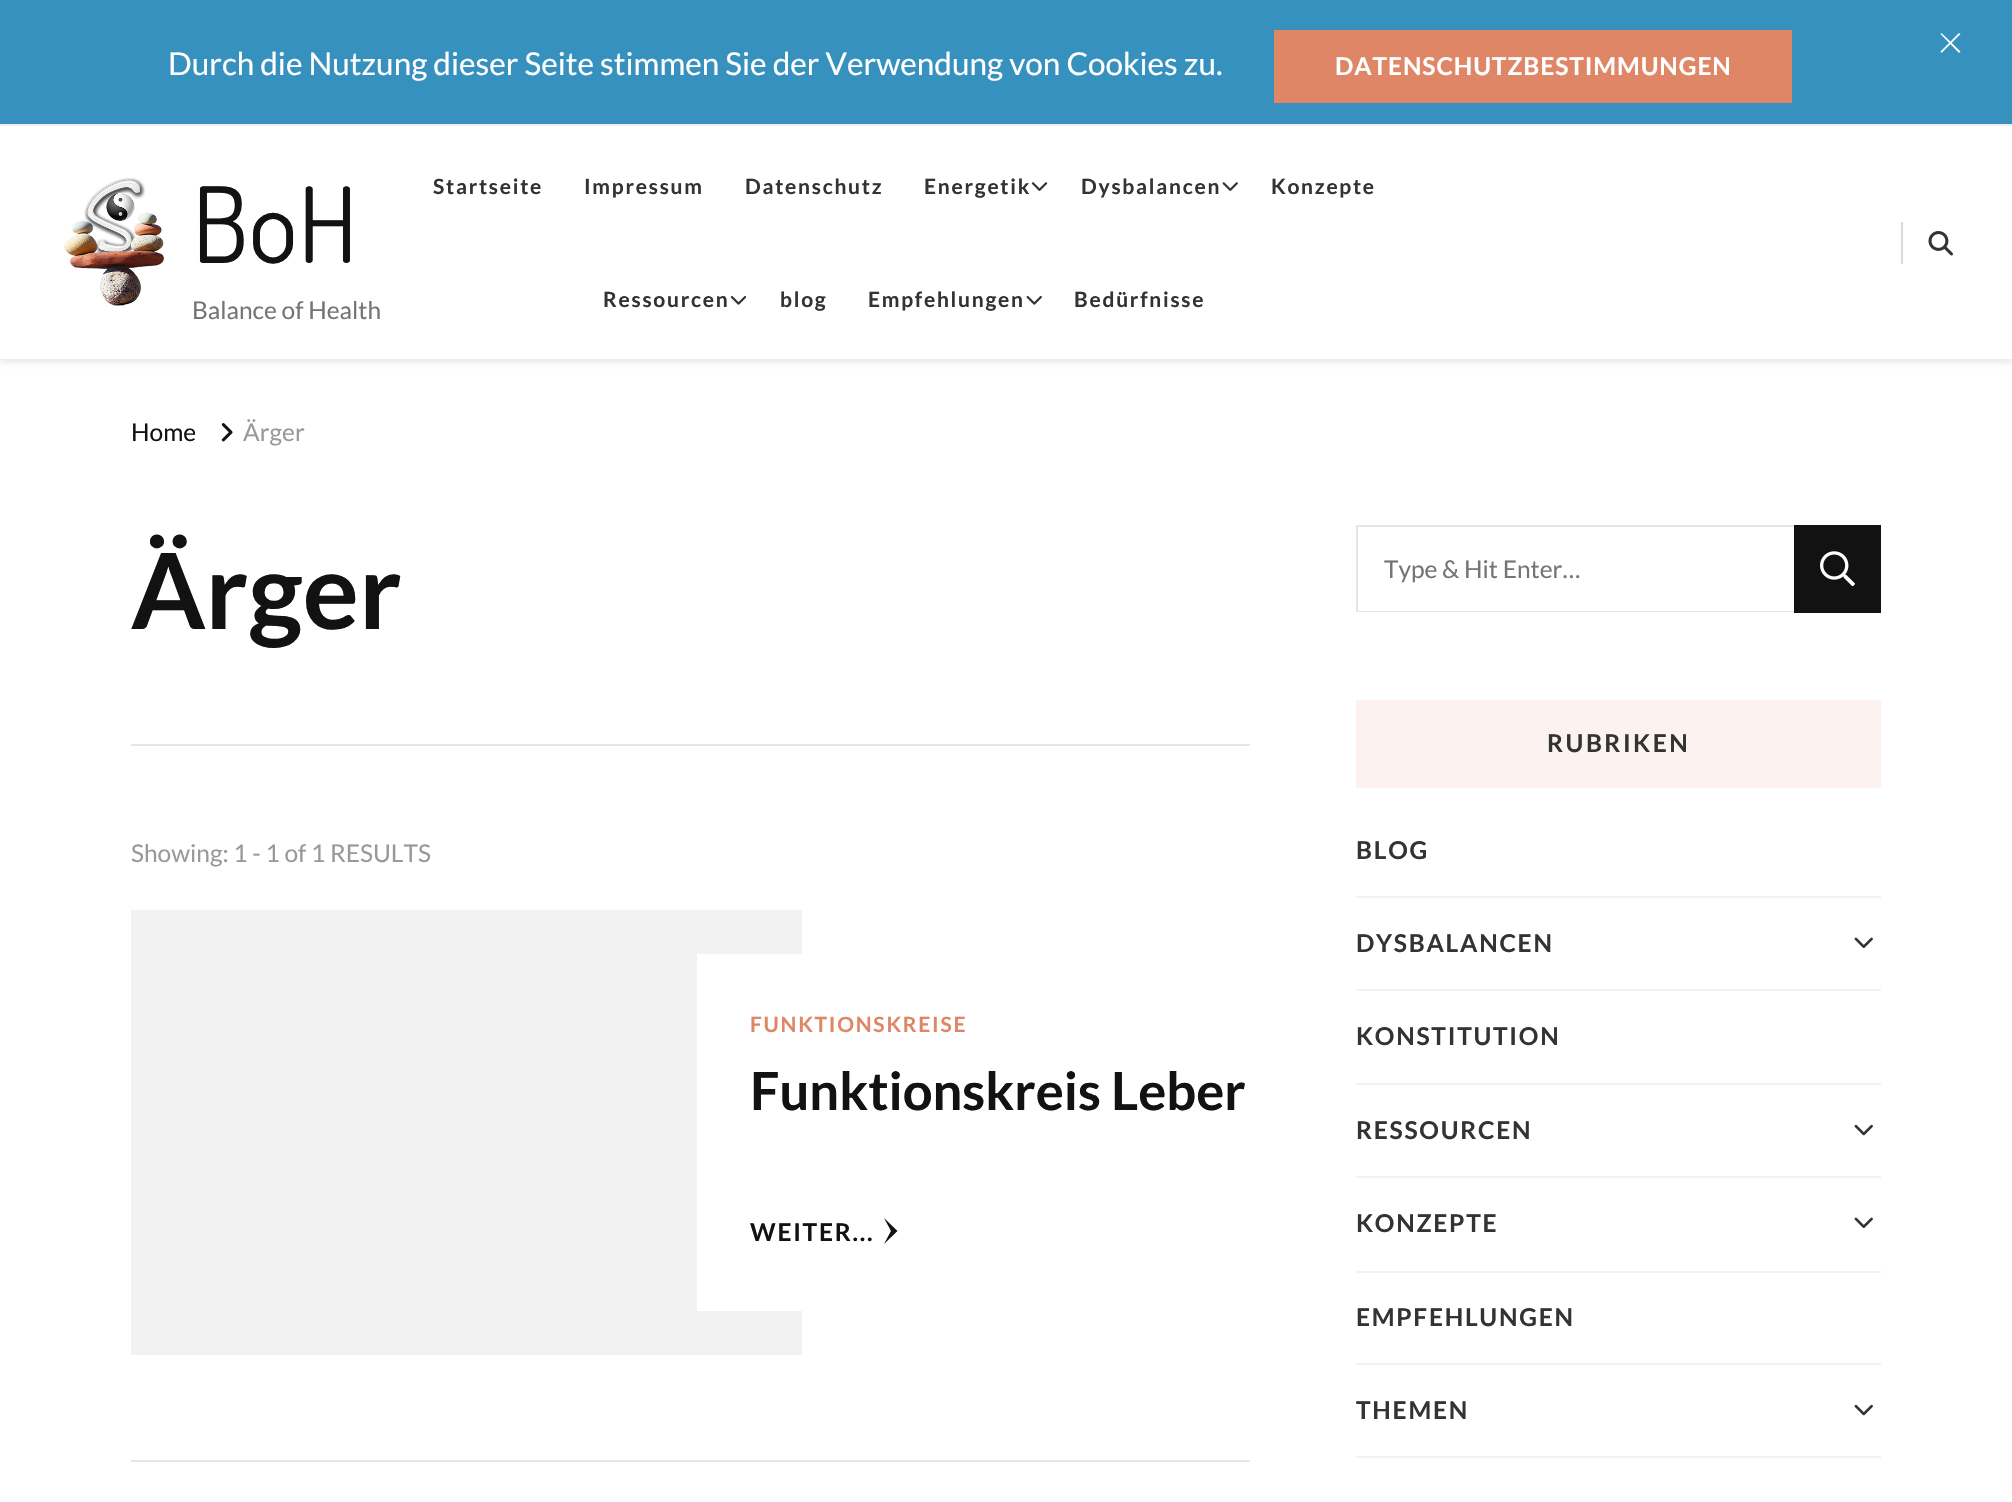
#include "include/core/SkBlurTypes.h"
#include "include/core/SkCanvas.h"
#include "include/core/SkData.h"
#include "include/core/SkFont.h"
#include "include/core/SkFontMgr.h"
#include "include/core/SkImage.h"
#include "include/core/SkMaskFilter.h"
#include "include/core/SkPaint.h"
#include "include/core/SkPathBuilder.h"
#include "include/core/SkTextBlob.h"
#include "include/effects/SkDashPathEffect.h"
#include "include/effects/SkGradientShader.h"
#include "include/utils/SkParsePath.h"

extern sk_sp<SkFontMgr> fontMgr;

void draw(SkCanvas* canvas) {
  SkPaint p;
  p.setAntiAlias(true);
  auto spacedText = [&](const char* s, float x, float y, const SkFont& font, const SkPaint& ink, float letter, float word) {
    std::vector<SkGlyphID> glyphs(font.countText(s, strlen(s), SkTextEncoding::kUTF8));
    std::vector<float> xs(glyphs.size());
    font.textToGlyphs(s, strlen(s), SkTextEncoding::kUTF8, glyphs);
    font.getXPos(glyphs, xs, x);
    float extra = 0;
    for (size_t i = 0; i < glyphs.size(); i++) {
      xs[i] += extra;
      extra += letter + word * (glyphs[i] == font.unicharToGlyph(' '));
    }
    canvas->drawTextBlob(SkTextBlob::MakeFromPosHGlyphs(glyphs, xs, y, font), 0, 0, ink);
  };
  canvas->clear(SK_ColorWHITE);
  p.setColor(SkColorSetRGB(55, 145, 191));
  canvas->drawRect(SkRect::MakeLTRB(0, 0, 2012, 124), p);
  p.setColor(SK_ColorWHITE);
  canvas->drawPath(SkPathBuilder().moveTo(1941.5f, 33).lineTo(1960.5f, 51.5f).lineTo(1959, 53).lineTo(1940.5f, 34).close().detach(), p);
  canvas->drawPath(SkPathBuilder().moveTo(1940.5f, 51.5f).lineTo(1959, 33).lineTo(1960.5f, 34).lineTo(1941.5f, 53).close().detach(), p);
  p.setColor(SkColorSetRGB(222, 134, 101));
  canvas->drawRect(SkRect::MakeLTRB(1274, 30, 1792, 103), p);
  canvas->save();
  canvas->clipPath(SkPathBuilder(SkPathFillType::kEvenOdd).moveTo(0, 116).lineTo(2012, 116).lineTo(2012, 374).lineTo(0, 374).close().moveTo(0, 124).lineTo(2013, 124).lineTo(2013, 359).lineTo(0, 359).close().detach(), true);
  p.setColor(SkColorSetARGB(26, 0, 0, 0));
  p.setMaskFilter(SkMaskFilter::MakeBlur(kNormal_SkBlurStyle, 3.5f));
  canvas->drawRect(SkRect::MakeLTRB(0, 128, 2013, 362), p);
  p.setMaskFilter(nullptr);
  canvas->restore();
  p.setColor(SkColorSetRGB(237, 237, 237));
  canvas->drawRect(SkRect::MakeLTRB(0, 124, 2012, 126), p);
  canvas->drawImageRect(SkImages::DeferredFromEncodedData(SkData::MakeFromFileName("images/1.png")), SkRect::MakeLTRB(64, 177, 164, 306), SkSamplingOptions());
  canvas->drawImageRect(SkImages::DeferredFromEncodedData(SkData::MakeFromFileName("images/2.png")), SkRect::MakeLTRB(1031, 182, 1048, 191), SkSamplingOptions());
  canvas->drawImageRect(SkImages::DeferredFromEncodedData(SkData::MakeFromFileName("images/3.png")), SkRect::MakeLTRB(1222, 182, 1238, 191), SkSamplingOptions());
  canvas->drawImageRect(SkImages::DeferredFromEncodedData(SkData::MakeFromFileName("images/4.png")), SkRect::MakeLTRB(730, 296, 747, 305), SkSamplingOptions());
  canvas->drawImageRect(SkImages::DeferredFromEncodedData(SkData::MakeFromFileName("images/5.png")), SkRect::MakeLTRB(1026, 296, 1042, 305), SkSamplingOptions());
  p.setColor(SkColorSetRGB(217, 217, 217));
  canvas->drawRect(SkRect::MakeLTRB(1901, 222, 1903, 264), p);
  canvas->drawImageRect(SkImages::DeferredFromEncodedData(SkData::MakeFromFileName("images/6.png")), SkRect::MakeLTRB(1928, 231, 1953, 256), SkSamplingOptions());
  canvas->drawImageRect(SkImages::DeferredFromEncodedData(SkData::MakeFromFileName("images/7.png")), SkRect::MakeLTRB(221, 423, 233, 442), SkSamplingOptions());
  p.setColor(SkColorSetRGB(230, 230, 230));
  canvas->drawRect(SkRect::MakeLTRB(131, 744, 1250, 746), p);
  canvas->drawRect(SkRect::MakeLTRB(131, 1460, 1250, 1462), p);
  p.setColor(SkColorSetRGB(242, 242, 242));
  canvas->drawRect(SkRect::MakeLTRB(131, 910, 802, 1355), p);
  p.setColor(SK_ColorWHITE);
  canvas->drawRect(SkRect::MakeLTRB(697, 954, 802, 1311), p);
  p.setColor(SkColorSetRGB(18, 18, 18));
  canvas->drawPath(SkPathBuilder().moveTo(897.5f, 1231).lineTo(884, 1244).lineTo(891, 1231).lineTo(884, 1218).close().detach(), p);
  p.setColor(SkColorSetRGB(230, 230, 230));
  canvas->drawPath(SkPathBuilder().moveTo(1356, 525).lineTo(1794, 525).lineTo(1794, 527).lineTo(1358, 527).close().detach(), p);
  canvas->drawPath(SkPathBuilder().moveTo(1794, 612).lineTo(1356, 612).lineTo(1358, 611).lineTo(1794, 611).close().detach(), p);
  p.setColor(SkColorSetARGB(26, 0, 0, 0));
  canvas->drawPath(SkPathBuilder().moveTo(1356, 612).lineTo(1356, 525).lineTo(1358, 527).lineTo(1358, 611).close().detach(), p);
  p.setColor(SkColorSetRGB(18, 18, 18));
  canvas->drawRect(SkRect::MakeLTRB(1794, 525, 1881, 613), p);
  canvas->drawImageRect(SkImages::DeferredFromEncodedData(SkData::MakeFromFileName("images/8.png")), SkRect::MakeLTRB(1820, 551, 1855, 586), SkSamplingOptions());
  p.setColor(SkColorSetRGB(252, 243, 240));
  canvas->drawRect(SkRect::MakeLTRB(1356, 700, 1881, 788), p);
  p.setColor(SkColorSetRGB(242, 242, 242));
  canvas->drawRect(SkRect::MakeLTRB(1356, 896, 1881, 898), p);
  canvas->drawRect(SkRect::MakeLTRB(1356, 989, 1881, 991), p);
  canvas->drawImageRect(SkImages::DeferredFromEncodedData(SkData::MakeFromFileName("images/9.png")), SkRect::MakeLTRB(1854, 937, 1873, 948), SkSamplingOptions());
  canvas->drawRect(SkRect::MakeLTRB(1356, 1083, 1881, 1085), p);
  canvas->drawRect(SkRect::MakeLTRB(1356, 1176, 1881, 1178), p);
  canvas->drawImageRect(SkImages::DeferredFromEncodedData(SkData::MakeFromFileName("images/10.png")), SkRect::MakeLTRB(1854, 1124, 1873, 1136), SkSamplingOptions());
  canvas->drawRect(SkRect::MakeLTRB(1356, 1271, 1881, 1273), p);
  canvas->drawImageRect(SkImages::DeferredFromEncodedData(SkData::MakeFromFileName("images/9.png")), SkRect::MakeLTRB(1854, 1217, 1873, 1228), SkSamplingOptions());
  canvas->drawRect(SkRect::MakeLTRB(1356, 1363, 1881, 1365), p);
  canvas->drawRect(SkRect::MakeLTRB(1356, 1456, 1881, 1458), p);
  canvas->drawImageRect(SkImages::DeferredFromEncodedData(SkData::MakeFromFileName("images/10.png")), SkRect::MakeLTRB(1854, 1404, 1873, 1416), SkSamplingOptions());
  SkFont font1(fontMgr->matchFamilyStyle("Lato", SkFontStyle::Normal()), 31.5f);
  font1.setSubpixel(true);
  p.setColor(SK_ColorWHITE);
  canvas->drawString("Durch die Nutzung dieser Seite stimmen Sie der Verwendung von Cookies zu.", 168, 75, font1, p);
  SkFont font2(fontMgr->matchFamilyStyle("Lato", SkFontStyle::Bold()), 24.5f);
  font2.setSubpixel(true);
  spacedText("DATENSCHUTZBESTIMMUNGEN", 1335, 75, font2, p, 0.9f, 0);
  SkFont font3(fontMgr->matchFamilyStyle("Dosis", SkFontStyle::Normal()), 105);
  font3.setSubpixel(true);
  p.setColor(SkColorSetRGB(18, 18, 18));
  canvas->drawString("BoH", 192, 263, font3, p);
  SkFont font4(fontMgr->matchFamilyStyle("Lato", SkFontStyle::Normal()), 24.5f);
  font4.setSubpixel(true);
  p.setColor(SkColorSetRGB(117, 117, 117));
  canvas->drawString("Balance of Health", 192, 319, font4, p);
  SkFont font5(fontMgr->matchFamilyStyle("Lato", SkFontStyle::Bold()), 21);
  font5.setSubpixel(true);
  p.setColor(SkColorSetRGB(51, 51, 51));
  spacedText("Startseite", 433, 194, font5, p, 1.75f, 0);
  spacedText("Impressum", 584, 194, font5, p, 1.75f, 0);
  spacedText("Datenschutz", 745, 194, font5, p, 1.75f, 0);
  spacedText("Energetik", 924, 194, font5, p, 1.75f, 0);
  spacedText("Dysbalancen", 1081, 194, font5, p, 1.75f, 0);
  spacedText("Konzepte", 1271, 194, font5, p, 1.75f, 0);
  spacedText("Ressourcen", 603, 307, font5, p, 1.75f, 0);
  spacedText("blog", 780, 307, font5, p, 1.75f, 0);
  spacedText("Empfehlungen", 868, 307, font5, p, 1.75f, 0);
  spacedText("Bedürfnisse", 1074, 307, font5, p, 1.75f, 0);
  p.setColor(SkColorSetRGB(18, 18, 18));
  canvas->drawString("Home", 131, 441, font4, p);
  p.setColor(SkColorSetRGB(153, 153, 153));
  canvas->drawString("Ärger", 243, 441, font4, p);
  SkFont font6(fontMgr->matchFamilyStyle("Lato", SkFontStyle::Bold()), 105);
  font6.setSubpixel(true);
  p.setColor(SkColorSetRGB(18, 18, 18));
  canvas->drawString("Ärger", 131, 629, font6, p);
  p.setColor(SkColorSetRGB(153, 153, 153));
  canvas->drawString("Showing: 1 - 1 of 1 RESULTS", 131, 862, font4, p);
  p.setColor(SkColorSetRGB(222, 134, 101));
  spacedText("FUNKTIONSKREISE", 750, 1032, font5, p, 1.75f, 0);
  SkFont font7(fontMgr->matchFamilyStyle("Lato", SkFontStyle::Bold()), 52.5f);
  font7.setSubpixel(true);
  p.setColor(SkColorSetRGB(18, 18, 18));
  canvas->drawString("Funktionskreis Leber", 750, 1110, font7, p);
  spacedText("WEITER...", 750, 1241, font2, p, 1.75f, 0);
  p.setColor(SkColorSetRGB(117, 117, 117));
  canvas->drawString("Type & Hit Enter…", 1384, 578, font4, p);
  p.setColor(SkColorSetRGB(51, 51, 51));
  spacedText("RUBRIKEN", 1547, 752, font2, p, 2.5f, 0);
  spacedText("BLOG", 1356, 859, font2, p, 1.75f, 0);
  spacedText("DYSBALANCEN", 1356, 952, font2, p, 1.75f, 0);
  spacedText("KONSTITUTION", 1356, 1045, font2, p, 1.75f, 0);
  spacedText("RESSOURCEN", 1356, 1139, font2, p, 1.75f, 0);
  spacedText("KONZEPTE", 1356, 1232, font2, p, 1.75f, 0);
  spacedText("EMPFEHLUNGEN", 1356, 1326, font2, p, 1.75f, 0);
  spacedText("THEMEN", 1356, 1419, font2, p, 1.75f, 0);
}
